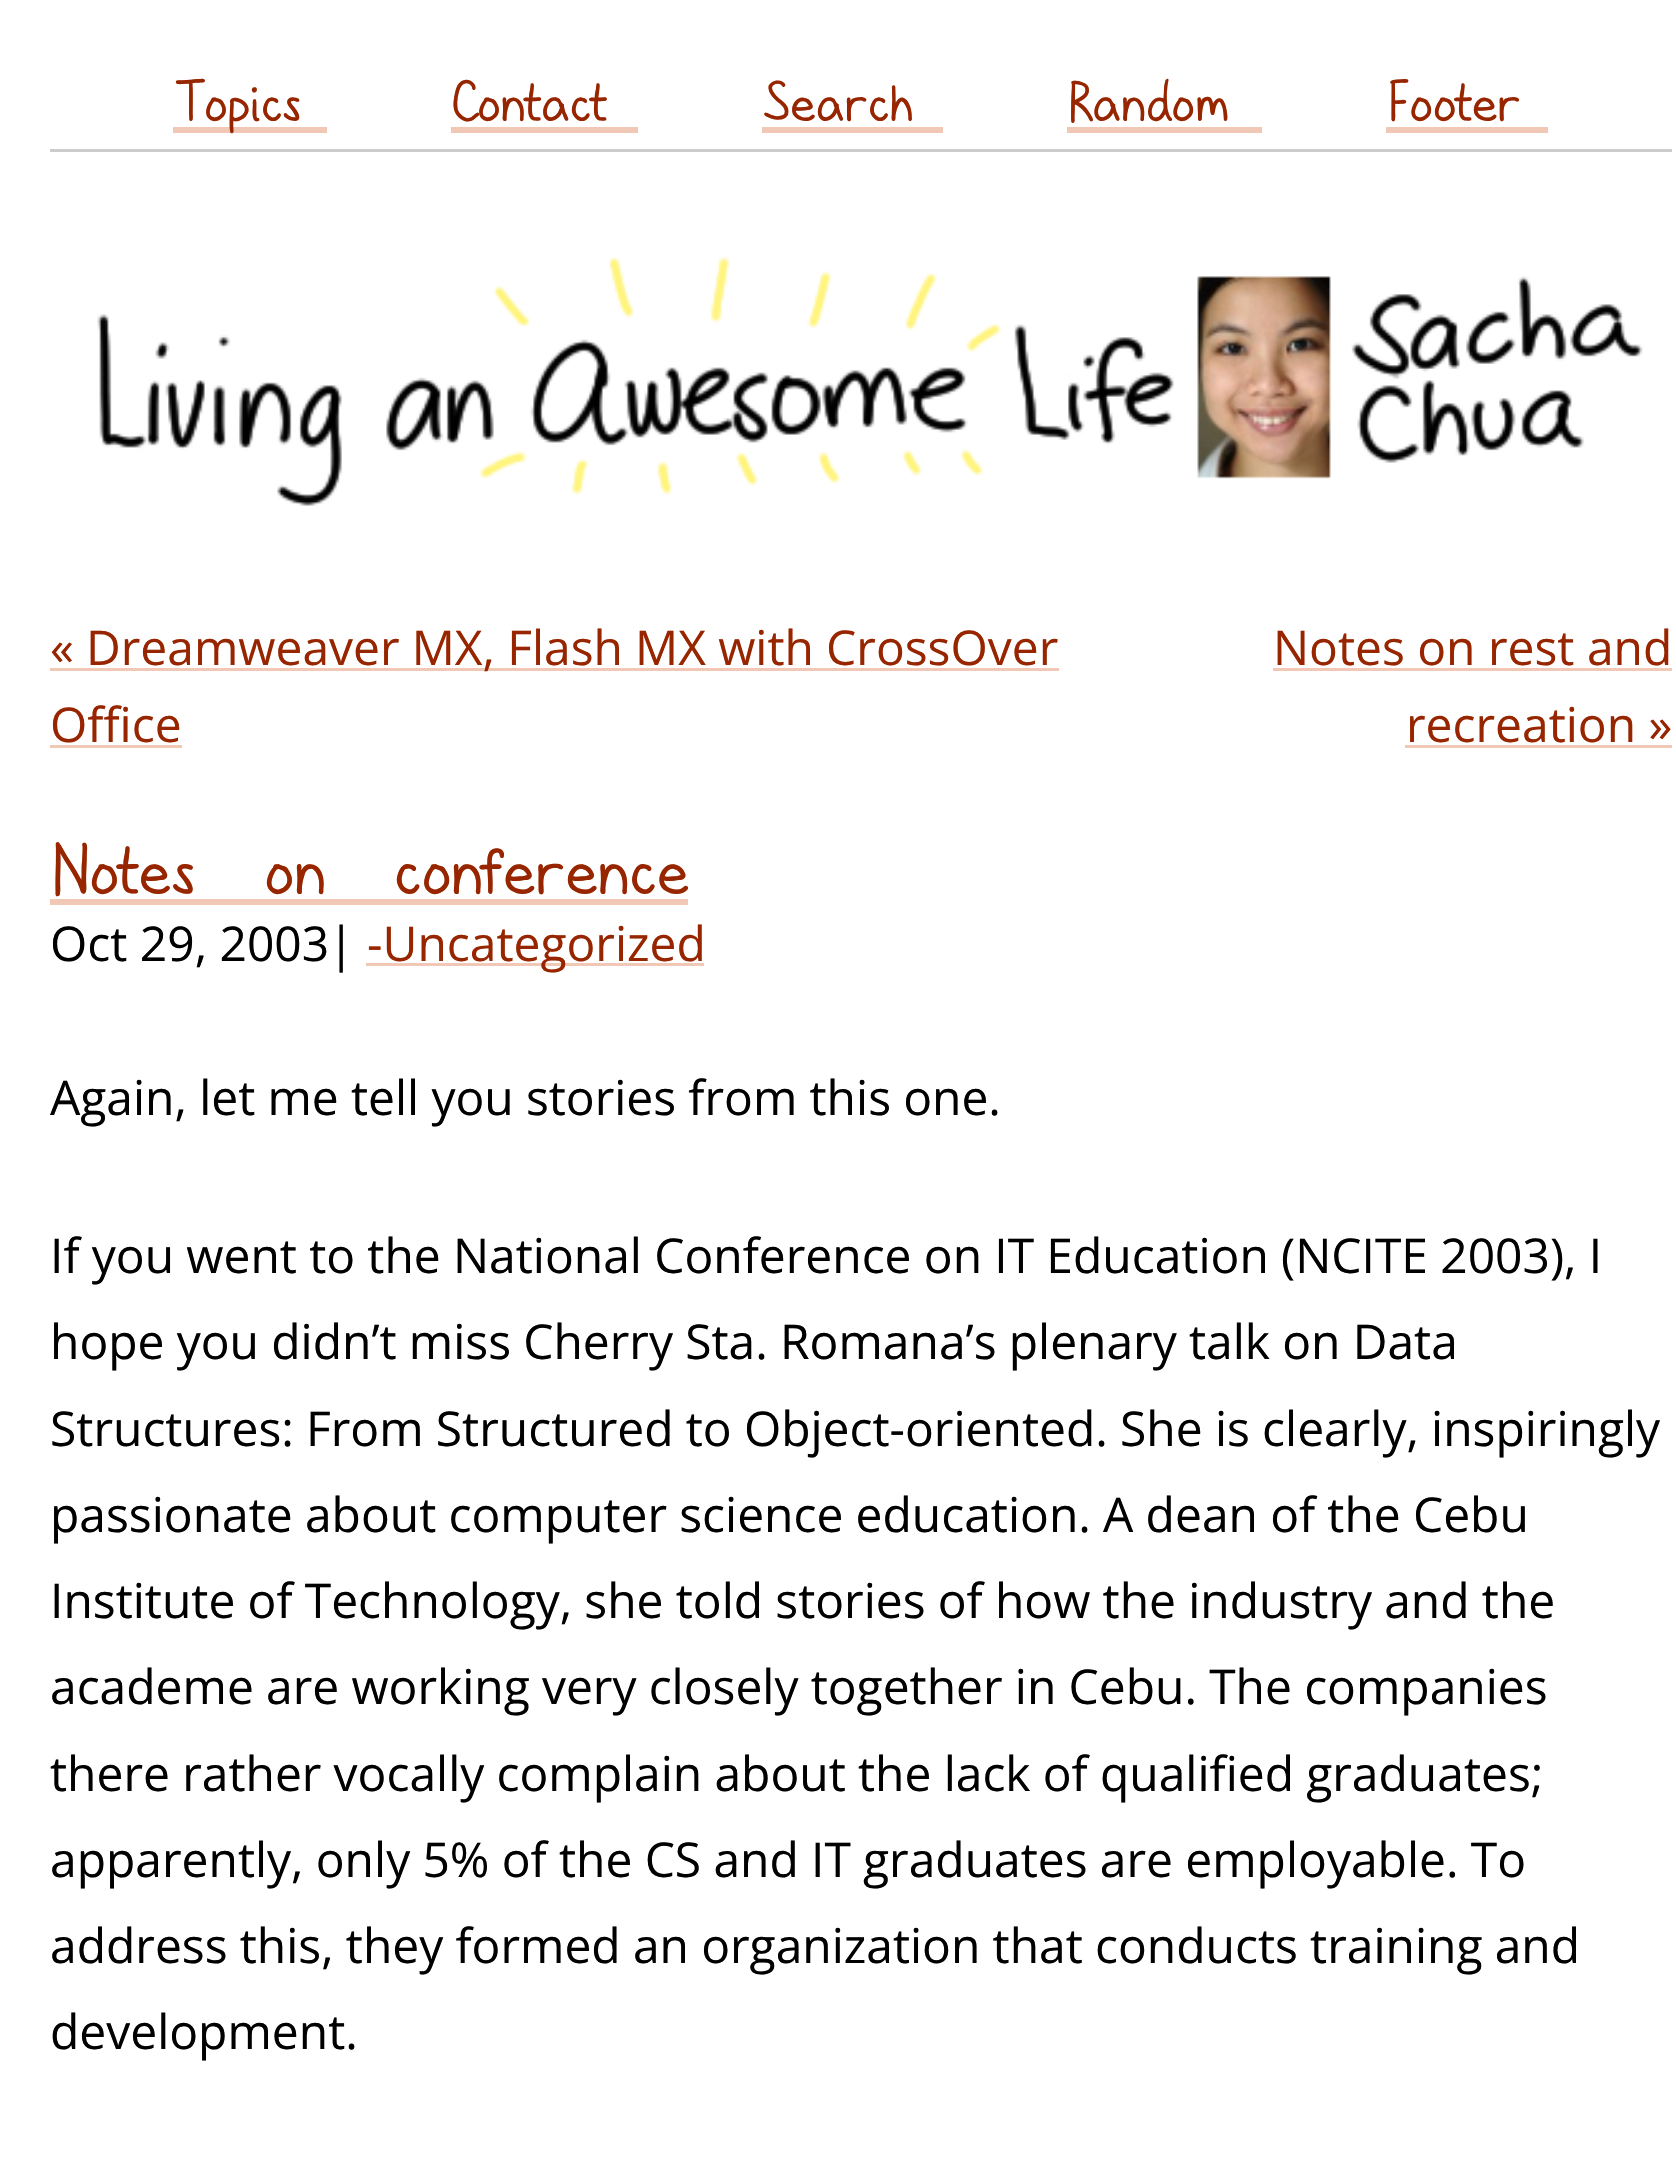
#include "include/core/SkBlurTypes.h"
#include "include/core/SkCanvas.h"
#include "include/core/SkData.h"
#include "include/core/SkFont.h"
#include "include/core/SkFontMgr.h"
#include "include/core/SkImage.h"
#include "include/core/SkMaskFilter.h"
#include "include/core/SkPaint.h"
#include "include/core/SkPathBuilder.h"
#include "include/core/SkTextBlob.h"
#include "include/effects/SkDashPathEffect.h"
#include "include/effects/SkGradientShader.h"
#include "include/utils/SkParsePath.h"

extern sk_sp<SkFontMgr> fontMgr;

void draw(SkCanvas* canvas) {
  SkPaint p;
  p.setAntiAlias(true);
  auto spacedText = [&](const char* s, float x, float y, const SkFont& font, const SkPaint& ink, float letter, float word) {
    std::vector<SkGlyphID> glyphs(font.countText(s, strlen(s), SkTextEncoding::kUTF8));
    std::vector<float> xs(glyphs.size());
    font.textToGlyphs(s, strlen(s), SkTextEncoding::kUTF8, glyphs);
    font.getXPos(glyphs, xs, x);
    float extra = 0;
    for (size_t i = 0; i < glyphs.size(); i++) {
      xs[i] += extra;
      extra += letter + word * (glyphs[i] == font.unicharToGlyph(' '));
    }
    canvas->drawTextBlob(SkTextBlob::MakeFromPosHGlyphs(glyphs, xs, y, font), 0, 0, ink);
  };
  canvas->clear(SK_ColorWHITE);
  p.setColor(SkColorSetRGB(204, 204, 204));
  canvas->drawRect(SkRect::MakeLTRB(50, 149, 1672, 152), p);
  p.setColor(SkColorSetRGB(241, 200, 181));
  canvas->drawRect(SkRect::MakeLTRB(173, 127, 327, 133), p);
  canvas->drawRect(SkRect::MakeLTRB(451, 127, 638, 133), p);
  canvas->drawRect(SkRect::MakeLTRB(762, 127, 943, 133), p);
  canvas->drawRect(SkRect::MakeLTRB(1067, 127, 1262, 133), p);
  canvas->drawRect(SkRect::MakeLTRB(1386, 127, 1548, 133), p);
  canvas->drawImageRect(SkImages::DeferredFromEncodedData(SkData::MakeFromFileName("images/1.png")), SkRect::MakeLTRB(97, 256, 1643, 506), SkSamplingOptions());
  canvas->drawRect(SkRect::MakeLTRB(50, 668, 1059, 671), p);
  canvas->drawRect(SkRect::MakeLTRB(50, 745, 182, 748), p);
  canvas->drawRect(SkRect::MakeLTRB(1273, 668, 1672, 671), p);
  canvas->drawRect(SkRect::MakeLTRB(1405, 745, 1672, 748), p);
  canvas->drawRect(SkRect::MakeLTRB(50, 899, 688, 905), p);
  canvas->drawRect(SkRect::MakeLTRB(366, 963, 704, 966), p);
  SkFont font1(fontMgr->matchFamilyStyle("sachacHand", SkFontStyle::Normal()), 61.5f);
  font1.setSubpixel(true);
  p.setColor(SkColorSetRGB(151, 37, 0));
  canvas->drawString("Topics", 174, 121, font1, p);
  canvas->drawString("Contact", 451, 121, font1, p);
  canvas->drawString("Search", 763, 121, font1, p);
  canvas->drawString("Random", 1068, 121, font1, p);
  canvas->drawString("Footer", 1386, 121, font1, p);
  SkFont font2(fontMgr->matchFamilyStyle("Open Sans", SkFontStyle::Normal()), 47.95f);
  font2.setSubpixel(true);
  spacedText("« Dreamweaver MX, Flash MX with CrossOver", 50, 665, font2, p, 0, -0.25f);
  canvas->drawString("Office", 50, 742, font2, p);
  canvas->drawString("Notes on rest and", 1273, 665, font2, p);
  canvas->drawString("recreation »", 1406, 742, font2, p);
  SkFont font3(fontMgr->matchFamilyStyle("sachacHand", SkFontStyle::Normal()), 78);
  font3.setSubpixel(true);
  spacedText("Notes on conference", 50, 894, font3, p, 0, 53);
  p.setColor(SK_ColorBLACK);
  canvas->drawString("Oct 29, 2003", 50, 961, font2, p);
  canvas->drawString("|", 328, 961, font2, p);
  p.setColor(SkColorSetRGB(151, 37, 0));
  canvas->drawString("-Uncategorized", 367, 961, font2, p);
  p.setColor(SK_ColorBLACK);
  spacedText("Again, let me tell you stories from this one.", 50, 1115, font2, p, 0, -0.25f);
  spacedText("If you went to the National Conference on IT Education (NCITE 2003), I", 50, 1273, font2, p, 0, -0.2f);
  spacedText("hope you didn’t miss Cherry Sta. Romana’s plenary talk on Data", 50, 1359, font2, p, 0, -0.25f);
  spacedText("Structures: From Structured to Object-oriented. She is clearly, inspiringly", 50, 1446, font2, p, 0, -0.25f);
  spacedText("passionate about computer science education. A dean of the Cebu", 50, 1532, font2, p, 0, -0.25f);
  spacedText("Institute of Technology, she told stories of how the industry and the", 50, 1618, font2, p, 0, -0.25f);
  spacedText("academe are working very closely together in Cebu. The companies", 50, 1704, font2, p, 0, -0.25f);
  spacedText("there rather vocally complain about the lack of qualified graduates;", 50, 1791, font2, p, 0, -0.25f);
  spacedText("apparently, only 5% of the CS and IT graduates are employable. To", 50, 1877, font2, p, 0, -0.2f);
  spacedText("address this, they formed an organization that conducts training and", 50, 1963, font2, p, 0, -0.25f);
  canvas->drawString("development.", 50, 2049, font2, p);
}
